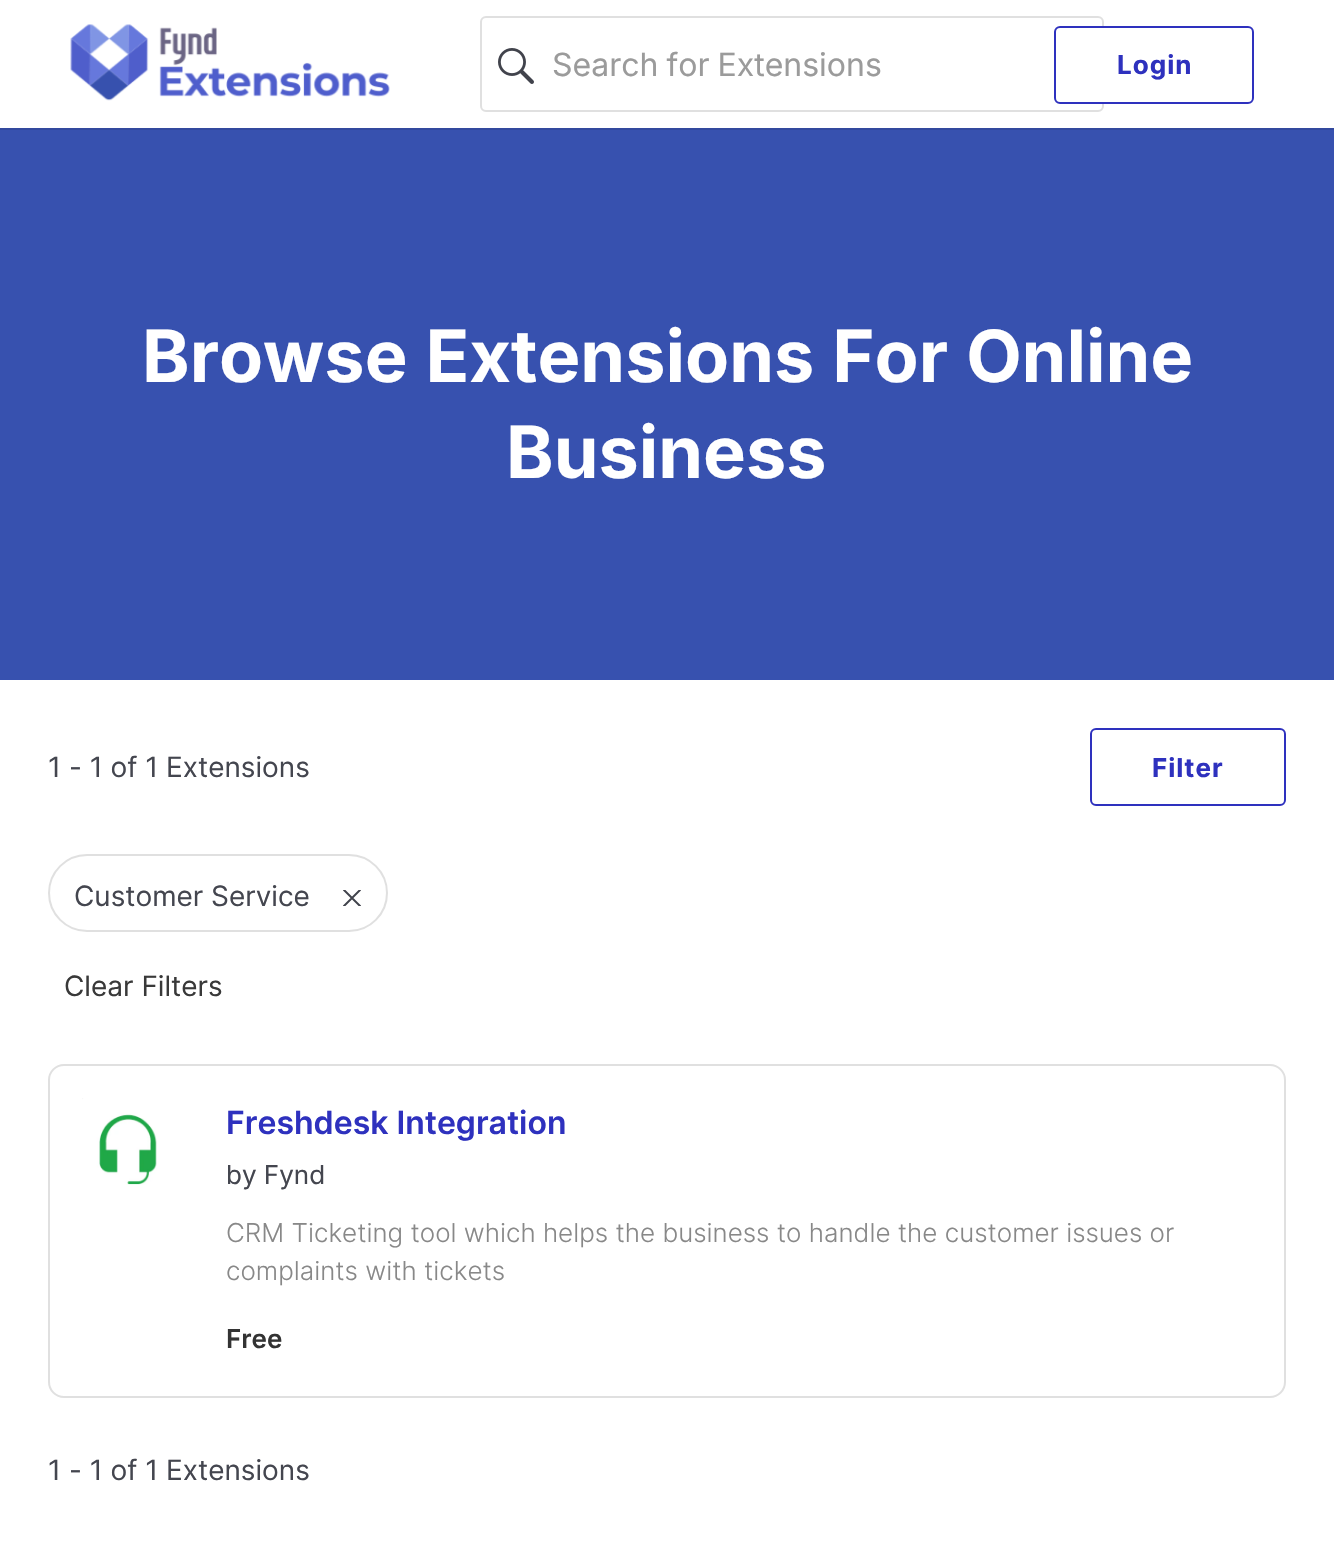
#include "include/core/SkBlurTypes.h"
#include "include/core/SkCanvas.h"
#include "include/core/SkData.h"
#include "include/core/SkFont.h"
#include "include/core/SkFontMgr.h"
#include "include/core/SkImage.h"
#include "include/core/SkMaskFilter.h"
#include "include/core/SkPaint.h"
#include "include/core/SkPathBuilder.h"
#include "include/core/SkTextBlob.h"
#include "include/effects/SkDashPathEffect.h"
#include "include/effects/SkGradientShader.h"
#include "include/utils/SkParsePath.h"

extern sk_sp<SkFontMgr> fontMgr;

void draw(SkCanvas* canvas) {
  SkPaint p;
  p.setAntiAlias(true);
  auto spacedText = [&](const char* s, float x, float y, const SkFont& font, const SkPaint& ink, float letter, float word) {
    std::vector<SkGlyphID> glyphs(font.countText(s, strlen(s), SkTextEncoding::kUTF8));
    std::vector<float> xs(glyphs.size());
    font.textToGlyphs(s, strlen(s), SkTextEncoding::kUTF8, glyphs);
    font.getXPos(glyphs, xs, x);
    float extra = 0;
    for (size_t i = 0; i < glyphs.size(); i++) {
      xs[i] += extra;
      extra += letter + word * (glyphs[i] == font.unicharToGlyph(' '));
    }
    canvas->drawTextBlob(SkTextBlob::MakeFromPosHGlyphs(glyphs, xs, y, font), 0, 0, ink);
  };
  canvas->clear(SK_ColorWHITE);
  p.setColor(SkColorSetRGB(50, 73, 158));
  canvas->drawRect(SkRect::MakeLTRB(0, 128, 1334, 130), p);
  canvas->drawImageRect(SkImages::DeferredFromEncodedData(SkData::MakeFromFileName("images/1.png")), SkRect::MakeLTRB(70, 24, 390, 101), SkSamplingOptions());
  p.setStyle(SkPaint::kStroke_Style);
  p.setStrokeWidth(2);
  p.setColor(SkColorSetRGB(224, 224, 224));
  canvas->drawRoundRect(SkRect::MakeLTRB(481, 17, 1103, 111), 5, 5, p);
  canvas->drawImageRect(SkImages::DeferredFromEncodedData(SkData::MakeFromFileName("images/2.png")), SkRect::MakeLTRB(498, 48, 534, 84), SkSamplingOptions());
  p.setStyle(SkPaint::kFill_Style);
  p.setColor(SK_ColorWHITE);
  canvas->drawRoundRect(SkRect::MakeLTRB(1055, 27, 1253, 103), 5, 5, p);
  p.setStyle(SkPaint::kStroke_Style);
  p.setColor(SkColorSetRGB(46, 49, 190));
  canvas->drawRoundRect(SkRect::MakeLTRB(1055, 27, 1253, 103), 5, 5, p);
  p.setStyle(SkPaint::kFill_Style);
  p.setColor(SkColorSetRGB(55, 81, 175));
  canvas->drawRect(SkRect::MakeLTRB(0, 130, 1334, 680), p);
  p.setStyle(SkPaint::kStroke_Style);
  p.setColor(SkColorSetRGB(46, 49, 190));
  canvas->drawRoundRect(SkRect::MakeLTRB(1091, 729, 1285, 805), 5, 5, p);
  p.setColor(SkColorSetRGB(224, 224, 224));
  canvas->drawRoundRect(SkRect::MakeLTRB(49, 855, 387, 931), 38, 38, p);
  canvas->save();
  canvas->clipRect(SkRect::MakeLTRB(342, 890, 362, 906));
  p.setStrokeCap(SkPaint::kRound_Cap);
  p.setStrokeJoin(SkPaint::kRound_Join);
  p.setColor(SkColorSetRGB(65, 67, 76));
  canvas->drawPath(SkPathBuilder().moveTo(344, 890).lineTo(360, 906).moveTo(360, 890).lineTo(344, 906).detach(), p);
  canvas->restore();
  p.setStrokeCap(SkPaint::kButt_Cap);
  p.setStrokeJoin(SkPaint::kMiter_Join);
  p.setColor(SkColorSetRGB(224, 224, 224));
  canvas->drawRoundRect(SkRect::MakeLTRB(49, 1065, 1285, 1397), 15, 15, p);
  canvas->drawImageRect(SkImages::DeferredFromEncodedData(SkData::MakeFromFileName("images/3.png")), SkRect::MakeLTRB(82, 1098, 157, 1185), SkSamplingOptions());
  SkFont font1(fontMgr->matchFamilyStyle("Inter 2", SkFontStyle::Normal()), 32);
  font1.setSubpixel(true);
  p.setStyle(SkPaint::kFill_Style);
  p.setColor(SkColorSetRGB(155, 155, 155));
  spacedText("Search for Extensions", 552, 76, font1, p, 0, -1);
  SkFont font2(fontMgr->matchFamilyStyle("Inter 2", SkFontStyle::Bold()), 26);
  font2.setSubpixel(true);
  p.setColor(SkColorSetRGB(46, 49, 190));
  spacedText("Login", 1117, 74, font2, p, 1, 0);
  SkFont font3(fontMgr->matchFamilyStyle("Inter", SkFontStyle::Bold()), 72);
  font3.setSubpixel(true);
  p.setColor(SK_ColorWHITE);
  spacedText("Browse Extensions For Online", 142, 382, font3, p, 0, 1);
  canvas->drawString("Business", 506, 478, font3, p);
  SkFont font4(fontMgr->matchFamilyStyle("Inter", SkFontStyle::Normal()), 28);
  font4.setSubpixel(true);
  p.setColor(SkColorSetRGB(68, 70, 79));
  canvas->drawString("1 - 1 of 1 Extensions", 48, 777, font4, p);
  p.setColor(SkColorSetRGB(46, 49, 190));
  spacedText("Filter", 1152, 777, font2, p, 1, 0);
  p.setColor(SkColorSetRGB(68, 70, 79));
  canvas->drawString("Customer Service", 74, 906, font4, p);
  p.setColor(SkColorSetRGB(57, 57, 57));
  canvas->drawString("Clear Filters", 64, 996, font4, p);
  SkFont font5(fontMgr->matchFamilyStyle("Inter", SkFontStyle(600, SkFontStyle::kNormal_Width, SkFontStyle::kUpright_Slant)), 32);
  font5.setSubpixel(true);
  p.setColor(SkColorSetRGB(46, 49, 190));
  canvas->drawString("Freshdesk Integration", 226, 1134, font5, p);
  SkFont font6(fontMgr->matchFamilyStyle("Inter 2", SkFontStyle::Normal()), 26);
  font6.setSubpixel(true);
  p.setColor(SkColorSetRGB(68, 70, 79));
  canvas->drawString("by Fynd", 226, 1184, font6, p);
  SkFont font7(fontMgr->matchFamilyStyle("Inter", SkFontStyle(300, SkFontStyle::kNormal_Width, SkFontStyle::kUpright_Slant)), 26);
  font7.setSubpixel(true);
  p.setColor(SkColorSetRGB(136, 136, 136));
  canvas->drawString("CRM Ticketing tool which helps the business to handle the customer issues or", 226, 1242, font7, p);
  canvas->drawString("complaints with tickets", 226, 1280, font7, p);
  SkFont font8(fontMgr->matchFamilyStyle("Inter 2", SkFontStyle(600, SkFontStyle::kNormal_Width, SkFontStyle::kUpright_Slant)), 26);
  font8.setSubpixel(true);
  p.setColor(SkColorSetRGB(51, 51, 51));
  canvas->drawString("Free", 226, 1348, font8, p);
  p.setColor(SkColorSetRGB(68, 70, 79));
  canvas->drawString("1 - 1 of 1 Extensions", 48, 1480, font4, p);
}
